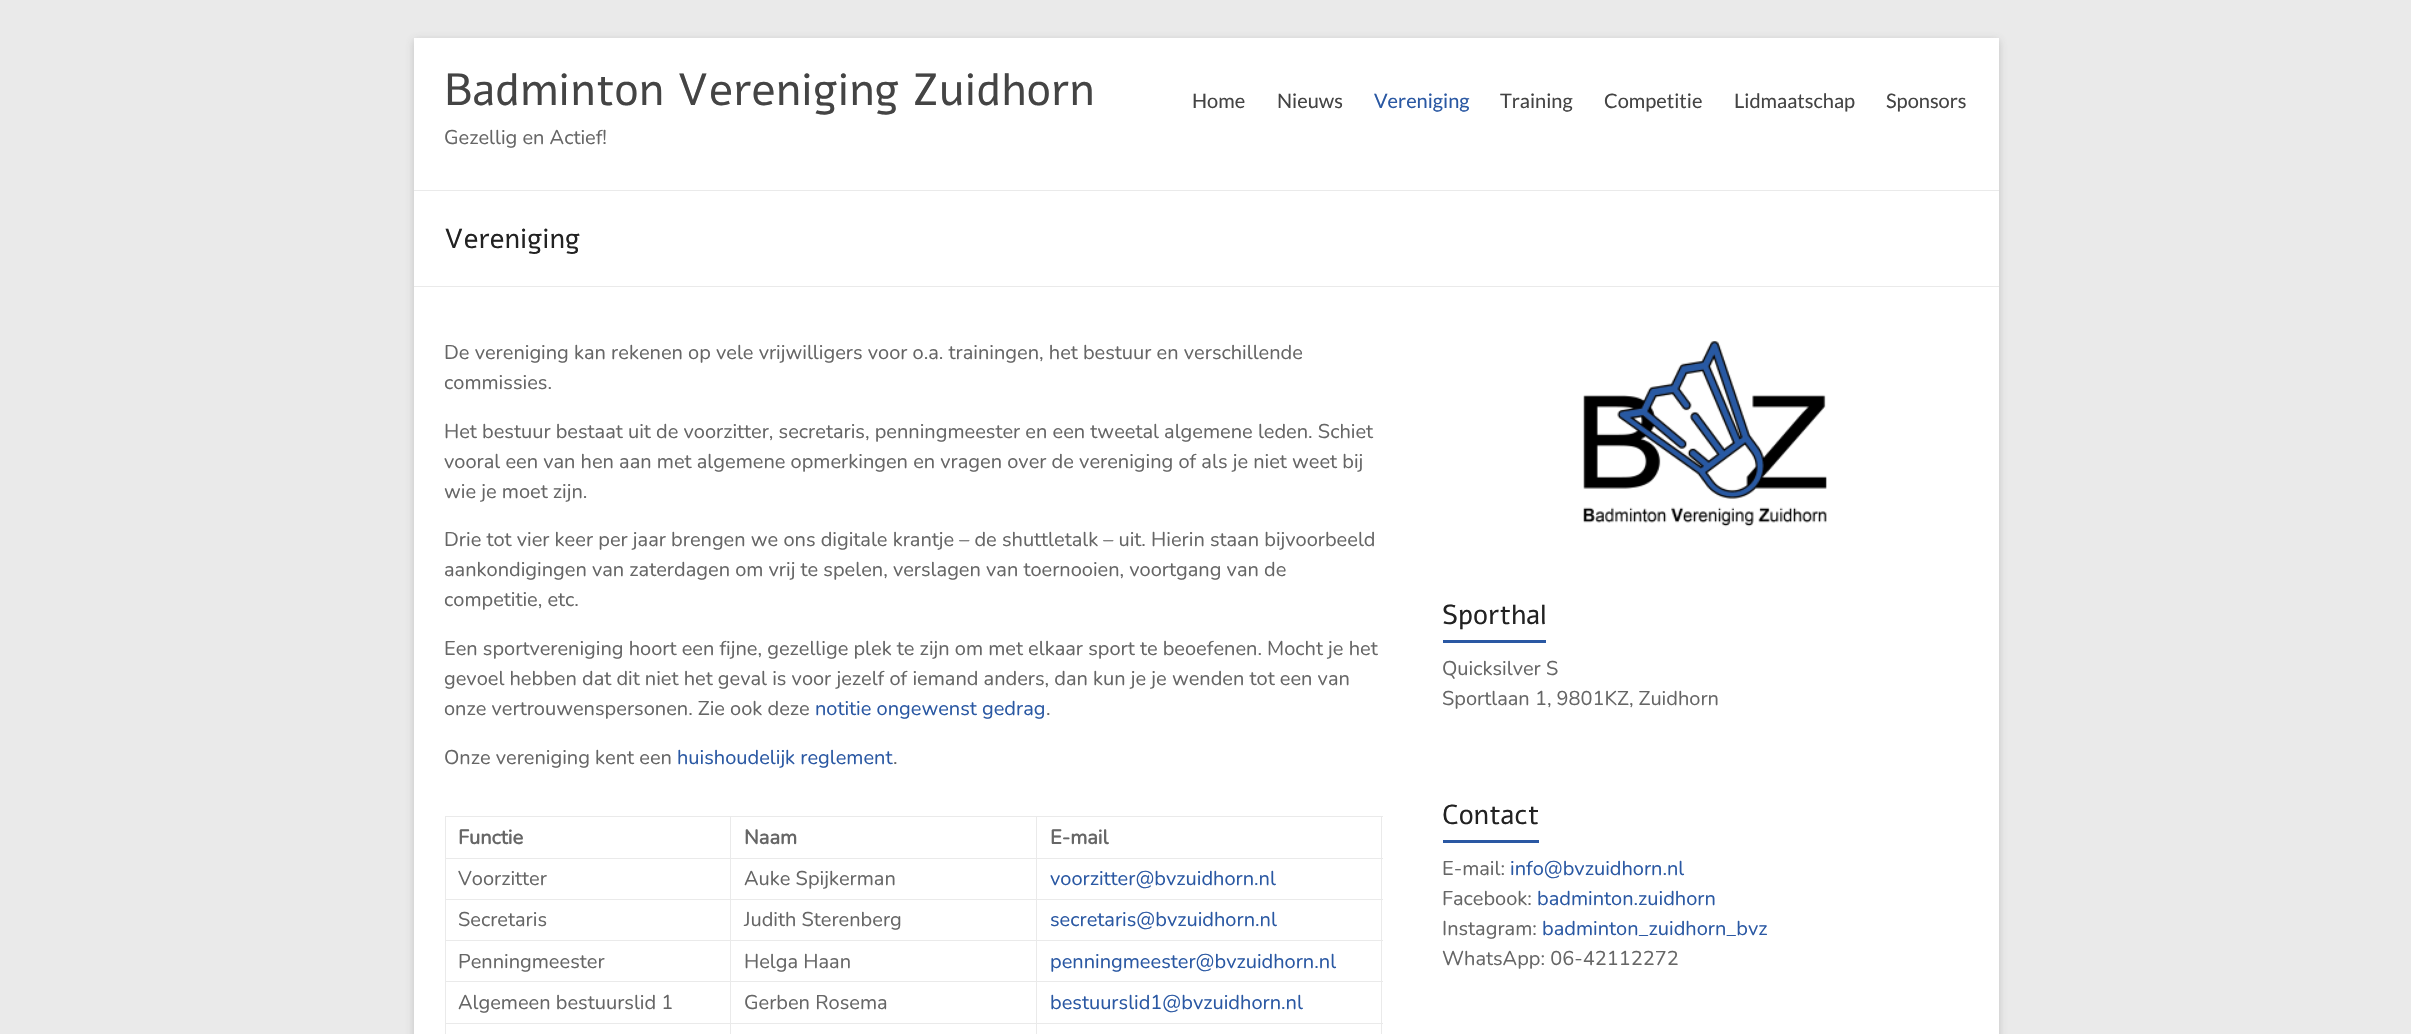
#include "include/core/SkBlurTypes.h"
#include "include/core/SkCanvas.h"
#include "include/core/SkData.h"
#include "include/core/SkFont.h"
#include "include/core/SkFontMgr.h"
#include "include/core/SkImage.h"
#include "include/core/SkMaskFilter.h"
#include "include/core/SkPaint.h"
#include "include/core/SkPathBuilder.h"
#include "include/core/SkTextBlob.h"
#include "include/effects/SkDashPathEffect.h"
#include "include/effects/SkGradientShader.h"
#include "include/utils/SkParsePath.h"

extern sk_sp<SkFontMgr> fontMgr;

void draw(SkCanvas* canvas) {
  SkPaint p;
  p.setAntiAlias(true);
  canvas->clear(SkColorSetRGB(234, 234, 234));
  p.setColor(SkColorSetARGB(77, 100, 100, 100));
  p.setMaskFilter(SkMaskFilter::MakeBlur(kNormal_SkBlurStyle, 4));
  canvas->drawRect(SkRect::MakeLTRB(414, 40, 1999, 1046), p);
  p.setMaskFilter(nullptr);
  p.setColor(SK_ColorWHITE);
  canvas->drawRect(SkRect::MakeLTRB(414, 38, 1999, 1034), p);
  p.setColor(SkColorSetRGB(234, 234, 234));
  canvas->drawRect(SkRect::MakeLTRB(414, 190, 1999, 191), p);
  canvas->drawRect(SkRect::MakeLTRB(414, 286, 1999, 287), p);
  canvas->drawRect(SkRect::MakeLTRB(1036, 816, 1383, 817), p);
  canvas->drawRect(SkRect::MakeLTRB(1036, 858, 1383, 859), p);
  canvas->drawRect(SkRect::MakeLTRB(1036, 899, 1383, 900), p);
  canvas->drawRect(SkRect::MakeLTRB(1036, 940, 1383, 941), p);
  canvas->drawRect(SkRect::MakeLTRB(1036, 981, 1383, 982), p);
  canvas->drawRect(SkRect::MakeLTRB(1036, 1023, 1383, 1024), p);
  canvas->drawRect(SkRect::MakeLTRB(1036, 1023, 1037, 1034), p);
  canvas->drawRect(SkRect::MakeLTRB(730, 1023, 1038, 1024), p);
  canvas->drawRect(SkRect::MakeLTRB(1036, 981, 1037, 1024), p);
  canvas->drawRect(SkRect::MakeLTRB(730, 981, 1038, 982), p);
  canvas->drawRect(SkRect::MakeLTRB(1036, 940, 1037, 983), p);
  canvas->drawRect(SkRect::MakeLTRB(730, 940, 1038, 941), p);
  canvas->drawRect(SkRect::MakeLTRB(1036, 899, 1037, 941), p);
  canvas->drawRect(SkRect::MakeLTRB(730, 899, 1038, 900), p);
  canvas->drawRect(SkRect::MakeLTRB(1036, 858, 1037, 900), p);
  canvas->drawRect(SkRect::MakeLTRB(730, 858, 1038, 859), p);
  canvas->drawRect(SkRect::MakeLTRB(1036, 816, 1037, 859), p);
  canvas->drawRect(SkRect::MakeLTRB(730, 816, 1038, 817), p);
  canvas->drawRect(SkRect::MakeLTRB(730, 1023, 731, 1034), p);
  canvas->drawRect(SkRect::MakeLTRB(445, 1023, 731, 1024), p);
  canvas->drawRect(SkRect::MakeLTRB(730, 981, 731, 1024), p);
  canvas->drawRect(SkRect::MakeLTRB(445, 981, 731, 982), p);
  canvas->drawRect(SkRect::MakeLTRB(730, 940, 731, 983), p);
  canvas->drawRect(SkRect::MakeLTRB(445, 940, 731, 941), p);
  canvas->drawRect(SkRect::MakeLTRB(730, 899, 731, 941), p);
  canvas->drawRect(SkRect::MakeLTRB(445, 899, 731, 900), p);
  canvas->drawRect(SkRect::MakeLTRB(730, 858, 731, 900), p);
  canvas->drawRect(SkRect::MakeLTRB(445, 858, 731, 859), p);
  canvas->drawRect(SkRect::MakeLTRB(730, 816, 731, 859), p);
  canvas->drawRect(SkRect::MakeLTRB(445, 816, 731, 817), p);
  canvas->drawRect(SkRect::MakeLTRB(445, 1023, 446, 1034), p);
  canvas->drawRect(SkRect::MakeLTRB(445, 981, 446, 1024), p);
  canvas->drawRect(SkRect::MakeLTRB(445, 940, 446, 983), p);
  canvas->drawRect(SkRect::MakeLTRB(445, 899, 446, 941), p);
  canvas->drawRect(SkRect::MakeLTRB(445, 858, 446, 900), p);
  canvas->drawRect(SkRect::MakeLTRB(445, 816, 446, 859), p);
  canvas->drawRect(SkRect::MakeLTRB(1381, 1023, 1382, 1034), p);
  canvas->drawRect(SkRect::MakeLTRB(1381, 981, 1382, 1024), p);
  canvas->drawRect(SkRect::MakeLTRB(1381, 940, 1382, 983), p);
  canvas->drawRect(SkRect::MakeLTRB(1381, 899, 1382, 941), p);
  canvas->drawRect(SkRect::MakeLTRB(1381, 858, 1382, 900), p);
  canvas->drawRect(SkRect::MakeLTRB(1381, 816, 1382, 859), p);
  canvas->drawImageRect(SkImages::DeferredFromEncodedData(SkData::MakeFromFileName("images/1.png")), SkRect::MakeLTRB(1583, 341, 1827, 527), SkSamplingOptions());
  p.setColor(SkColorSetRGB(42, 88, 163));
  canvas->drawRect(SkRect::MakeLTRB(1443, 640, 1546, 643), p);
  canvas->drawRect(SkRect::MakeLTRB(1443, 840, 1539, 843), p);
  SkFont font1(fontMgr->matchFamilyStyle("Alef", SkFontStyle::Normal()), 45);
  font1.setSubpixel(true);
  p.setColor(SkColorSetRGB(68, 68, 68));
  canvas->drawString("Badminton Vereniging Zuidhorn", 444, 105, font1, p);
  SkFont font2(fontMgr->matchFamilyStyle("Nunito", SkFontStyle(200, SkFontStyle::kNormal_Width, SkFontStyle::kUpright_Slant)), 20);
  font2.setSubpixel(true);
  p.setColor(SkColorSetRGB(102, 102, 102));
  canvas->drawString("Gezellig en Actief!", 444, 144, font2, p);
  SkFont font3(fontMgr->matchFamilyStyle("Lato", SkFontStyle::Normal()), 20);
  font3.setSubpixel(true);
  p.setColor(SkColorSetRGB(68, 68, 68));
  canvas->drawString("Home", 1192, 108, font3, p);
  canvas->drawString("Nieuws", 1277, 108, font3, p);
  p.setColor(SkColorSetRGB(42, 88, 163));
  canvas->drawString("Vereniging", 1374, 108, font3, p);
  p.setColor(SkColorSetRGB(68, 68, 68));
  canvas->drawString("Training", 1500, 108, font3, p);
  canvas->drawString("Competitie", 1604, 108, font3, p);
  canvas->drawString("Lidmaatschap", 1734, 108, font3, p);
  canvas->drawString("Sponsors", 1886, 108, font3, p);
  SkFont font4(fontMgr->matchFamilyStyle("Alef", SkFontStyle::Normal()), 27.5f);
  font4.setSubpixel(true);
  p.setColor(SkColorSetRGB(34, 34, 34));
  canvas->drawString("Vereniging", 444, 248, font4, p);
  p.setColor(SkColorSetRGB(102, 102, 102));
  canvas->drawString("De vereniging kan rekenen op vele vrijwilligers voor o.a. trainingen, het bestuur en verschillende", 444, 359, font2, p);
  canvas->drawString("commissies.", 444, 389, font2, p);
  canvas->drawString("Het bestuur bestaat uit de voorzitter, secretaris, penningmeester en een tweetal algemene leden. Schiet", 444, 438, font2, p);
  canvas->drawString("vooral een van hen aan met algemene opmerkingen en vragen over de vereniging of als je niet weet bij", 444, 468, font2, p);
  canvas->drawString("wie je moet zijn.", 444, 498, font2, p);
  canvas->drawString("Drie tot vier keer per jaar brengen we ons digitale krantje – de shuttletalk – uit. Hierin staan bijvoorbeeld", 444, 546, font2, p);
  canvas->drawString("aankondigingen van zaterdagen om vrij te spelen, verslagen van toernooien, voortgang van de", 444, 576, font2, p);
  canvas->drawString("competitie, etc.", 444, 606, font2, p);
  canvas->drawString("Een sportvereniging hoort een fijne, gezellige plek te zijn om met elkaar sport te beoefenen. Mocht je het", 444, 655, font2, p);
  canvas->drawString("gevoel hebben dat dit niet het geval is voor jezelf of iemand anders, dan kun je je wenden tot een van", 444, 685, font2, p);
  canvas->drawString("onze vertrouwenspersonen. Zie ook deze", 444, 715, font2, p);
  p.setColor(SkColorSetRGB(42, 88, 163));
  canvas->drawString("notitie ongewenst gedrag", 815, 715, font2, p);
  p.setColor(SkColorSetRGB(102, 102, 102));
  canvas->drawString(".", 1046, 715, font2, p);
  canvas->drawString("Onze vereniging kent een", 444, 764, font2, p);
  p.setColor(SkColorSetRGB(42, 88, 163));
  canvas->drawString("huishoudelijk reglement", 677, 764, font2, p);
  p.setColor(SkColorSetRGB(102, 102, 102));
  canvas->drawString(".", 893, 764, font2, p);
  SkFont font5(fontMgr->matchFamilyStyle("Nunito", SkFontStyle::Bold()), 20);
  font5.setSubpixel(true);
  canvas->drawString("Functie", 458, 844, font5, p);
  canvas->drawString("Naam", 744, 844, font5, p);
  canvas->drawString("E-mail", 1050, 844, font5, p);
  canvas->drawString("Voorzitter", 458, 885, font2, p);
  canvas->drawString("Auke Spijkerman", 744, 885, font2, p);
  p.setColor(SkColorSetRGB(42, 88, 163));
  canvas->drawString("voorzitter@bvzuidhorn.nl", 1050, 885, font2, p);
  p.setColor(SkColorSetRGB(102, 102, 102));
  canvas->drawString("Secretaris", 458, 926, font2, p);
  canvas->drawString("Judith Sterenberg", 744, 926, font2, p);
  p.setColor(SkColorSetRGB(42, 88, 163));
  canvas->drawString("secretaris@bvzuidhorn.nl", 1050, 926, font2, p);
  p.setColor(SkColorSetRGB(102, 102, 102));
  canvas->drawString("Penningmeester", 458, 968, font2, p);
  canvas->drawString("Helga Haan", 744, 968, font2, p);
  p.setColor(SkColorSetRGB(42, 88, 163));
  canvas->drawString("penningmeester@bvzuidhorn.nl", 1050, 968, font2, p);
  p.setColor(SkColorSetRGB(102, 102, 102));
  canvas->drawString("Algemeen bestuurslid 1", 458, 1009, font2, p);
  canvas->drawString("Gerben Rosema", 744, 1009, font2, p);
  p.setColor(SkColorSetRGB(42, 88, 163));
  canvas->drawString("bestuurslid1@bvzuidhorn.nl", 1050, 1009, font2, p);
  p.setColor(SkColorSetRGB(34, 34, 34));
  canvas->drawString("Sporthal", 1442, 624, font4, p);
  p.setColor(SkColorSetRGB(102, 102, 102));
  canvas->drawString("Quicksilver S", 1442, 675, font2, p);
  canvas->drawString("Sportlaan 1, 9801KZ, Zuidhorn", 1442, 705, font2, p);
  p.setColor(SkColorSetRGB(34, 34, 34));
  canvas->drawString("Contact", 1442, 824, font4, p);
  p.setColor(SkColorSetRGB(102, 102, 102));
  canvas->drawString("E-mail:", 1442, 875, font2, p);
  p.setColor(SkColorSetRGB(42, 88, 163));
  canvas->drawString("info@bvzuidhorn.nl", 1510, 875, font2, p);
  p.setColor(SkColorSetRGB(102, 102, 102));
  canvas->drawString("Facebook:", 1442, 905, font2, p);
  p.setColor(SkColorSetRGB(42, 88, 163));
  canvas->drawString("badminton.zuidhorn", 1537, 905, font2, p);
  p.setColor(SkColorSetRGB(102, 102, 102));
  canvas->drawString("Instagram:", 1442, 935, font2, p);
  p.setColor(SkColorSetRGB(42, 88, 163));
  canvas->drawString("badminton_zuidhorn_bvz", 1542, 935, font2, p);
  p.setColor(SkColorSetRGB(102, 102, 102));
  canvas->drawString("WhatsApp: 06-42112272", 1442, 965, font2, p);
}
